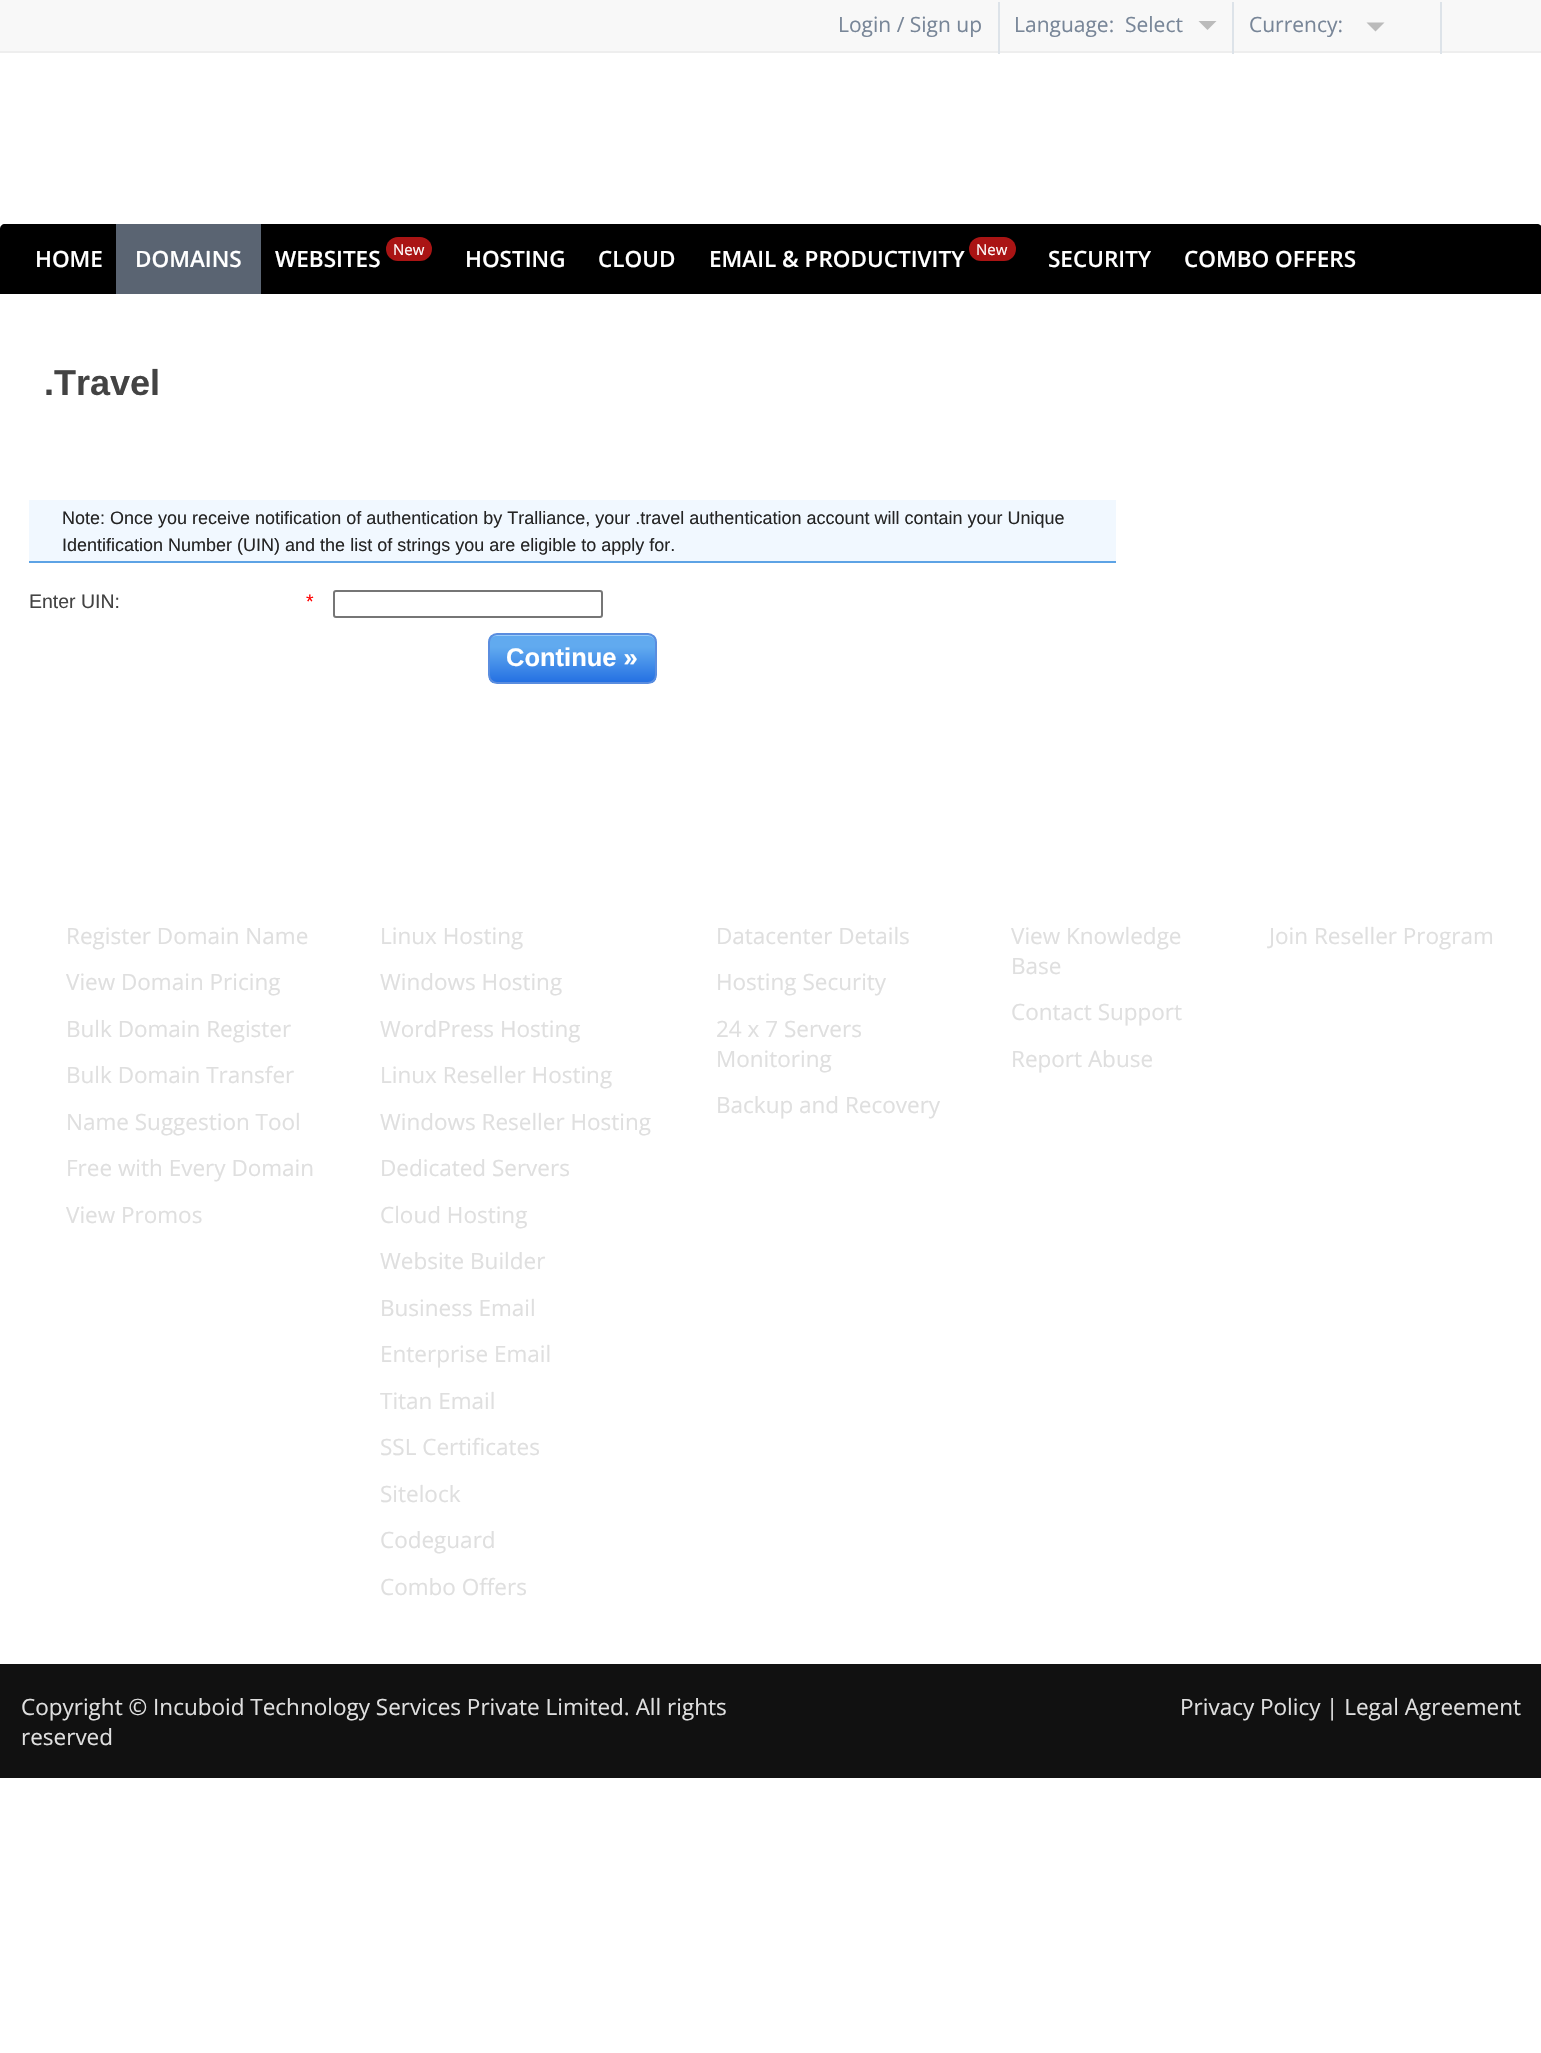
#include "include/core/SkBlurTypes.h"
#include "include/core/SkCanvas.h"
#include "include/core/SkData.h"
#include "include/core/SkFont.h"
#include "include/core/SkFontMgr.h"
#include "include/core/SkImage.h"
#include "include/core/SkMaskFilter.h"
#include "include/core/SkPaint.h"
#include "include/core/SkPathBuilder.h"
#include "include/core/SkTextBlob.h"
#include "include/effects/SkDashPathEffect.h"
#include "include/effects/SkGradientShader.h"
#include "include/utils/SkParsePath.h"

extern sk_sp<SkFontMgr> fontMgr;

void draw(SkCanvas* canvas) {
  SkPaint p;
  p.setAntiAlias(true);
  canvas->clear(SK_ColorWHITE);
  p.setColor(SkColorSetRGB(248, 248, 248));
  canvas->drawRect(SkRect::MakeLTRB(0, 0, 1541, 51), p);
  p.setColor(SkColorSetRGB(238, 238, 238));
  canvas->drawRect(SkRect::MakeLTRB(0, 51, 1541, 53), p);
  p.setColor(SkColorSetRGB(221, 227, 233));
  canvas->drawRect(SkRect::MakeLTRB(998, 2, 1000, 54), p);
  canvas->drawRect(SkRect::MakeLTRB(1232, 2, 1234, 54), p);
  p.setColor(SkColorSetRGB(187, 187, 187));
  canvas->drawPath(SkPathBuilder().moveTo(1198.5f, 21).lineTo(1216.5f, 21).lineTo(1207.5f, 30).close().detach(), p);
  p.setColor(SkColorSetRGB(221, 227, 233));
  canvas->drawRect(SkRect::MakeLTRB(1440, 2, 1442, 54), p);
  p.setColor(SkColorSetRGB(187, 187, 187));
  canvas->drawPath(SkPathBuilder().moveTo(1366.5f, 22.5f).lineTo(1384.5f, 22.5f).lineTo(1375.5f, 31.5f).close().detach(), p);
  p.setColor(SK_ColorBLACK);
  canvas->drawPath(SkPathBuilder().moveTo(5, 224).lineTo(1537, 224).cubicTo(1540, 224, 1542, 226, 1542, 229).lineTo(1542, 294).lineTo(0, 294).lineTo(0, 229).cubicTo(0, 226, 2, 224, 5, 224).close().detach(), p);
  p.setColor(SkColorSetRGB(90, 100, 114));
  canvas->drawRect(SkRect::MakeLTRB(116, 224, 261, 294), p);
  p.setColor(SkColorSetRGB(170, 20, 20));
  canvas->drawRoundRect(SkRect::MakeLTRB(386, 237, 432, 261), 12, 12, p);
  canvas->drawRoundRect(SkRect::MakeLTRB(969, 237, 1016, 261), 12, 12, p);
  p.setColor(SkColorSetRGB(241, 248, 255));
  canvas->drawRect(SkRect::MakeLTRB(29, 500, 1116, 561), p);
  p.setColor(SkColorSetRGB(93, 163, 229));
  canvas->drawRect(SkRect::MakeLTRB(29, 561, 1116, 563), p);
  p.setStyle(SkPaint::kStroke_Style);
  p.setStrokeWidth(2);
  p.setColor(SkColorSetRGB(118, 118, 118));
  canvas->drawRoundRect(SkRect::MakeLTRB(334, 591, 602, 617), 2, 2, p);
  canvas->save();
  canvas->clipPath(SkPathBuilder().moveTo(497, 633).lineTo(648, 633).cubicTo(653, 633, 657, 637, 657, 642).lineTo(657, 675).cubicTo(657, 680, 653, 684, 648, 684).lineTo(497, 684).cubicTo(492, 684, 488, 680, 488, 675).lineTo(488, 642).cubicTo(488, 637, 492, 633, 497, 633).close().detach(), true);
  p.setStyle(SkPaint::kFill_Style);
  {
    const SkColor colors[] = {SkColorSetRGB(97, 170, 239), SkColorSetRGB(97, 170, 239), SkColorSetRGB(35, 111, 226)};
    const float stops[] = {0, 0.25f, 1};
    const SkPoint ends[] = {{572, 635}, {572, 683}};
    p.setShader(SkGradientShader::MakeLinear(ends, colors, stops, 3, SkTileMode::kClamp));
    p.setAlpha(255);
  }
  canvas->drawRect(SkRect::MakeLTRB(489, 635, 656, 683), p);
  canvas->restore();
  p.setShader(nullptr);
  p.setColor(SkColorSetRGB(154, 205, 249));
  canvas->drawPath(SkPathBuilder().moveTo(496, 636).lineTo(648, 636).cubicTo(652, 636, 656, 639, 656, 644).lineTo(656, 643).cubicTo(656, 639, 652, 635, 648, 635).lineTo(497, 635).cubicTo(493, 635, 489, 639, 489, 643).lineTo(489, 644).cubicTo(489, 639, 492, 636, 496, 636).close().detach(), p);
  p.setStyle(SkPaint::kStroke_Style);
  p.setColor(SkColorSetRGB(90, 141, 223));
  canvas->drawRoundRect(SkRect::MakeLTRB(489, 634, 656, 683), 8, 8, p);
  p.setStyle(SkPaint::kFill_Style);
  p.setColor(SkColorSetRGB(17, 17, 17));
  canvas->drawRect(SkRect::MakeLTRB(0, 1664, 1541, 1778), p);
  SkFont font1(fontMgr->matchFamilyStyle("Open Sans", SkFontStyle::Normal()), 21);
  font1.setSubpixel(true);
  p.setColor(SkColorSetRGB(120, 134, 152));
  canvas->drawString("Login / Sign up", 838, 32, font1, p);
  canvas->drawString("Language:", 1014, 32, font1, p);
  canvas->drawString("Select", 1125, 32, font1, p);
  canvas->drawString("Currency:", 1249, 32, font1, p);
  SkFont font2(fontMgr->matchFamilyStyle("Open Sans", SkFontStyle(600, SkFontStyle::kNormal_Width, SkFontStyle::kUpright_Slant)), 22.5f);
  font2.setSubpixel(true);
  p.setColor(SK_ColorWHITE);
  canvas->drawString("HOME", 35, 267, font2, p);
  canvas->drawString("DOMAINS", 135, 267, font2, p);
  canvas->drawString("WEBSITES", 275, 267, font2, p);
  SkFont font3(fontMgr->matchFamilyStyle("Open Sans", SkFontStyle::Normal()), 15);
  font3.setSubpixel(true);
  canvas->drawString("New", 393, 255, font3, p);
  canvas->drawString("HOSTING", 465, 267, font2, p);
  canvas->drawString("CLOUD", 598, 267, font2, p);
  canvas->drawString("EMAIL & PRODUCTIVITY", 709, 267, font2, p);
  canvas->drawString("New", 976, 255, font3, p);
  canvas->drawString("SECURITY", 1048, 267, font2, p);
  canvas->drawString("COMBO OFFERS", 1184, 267, font2, p);
  SkFont font4(fontMgr->matchFamilyStyle("Liberation Sans", SkFontStyle::Bold()), 36);
  font4.setSubpixel(true);
  p.setColor(SkColorSetRGB(67, 67, 67));
  canvas->drawString(".Travel", 44, 395, font4, p);
  SkFont font5(fontMgr->matchFamilyStyle("Liberation Sans", SkFontStyle::Normal()), 18);
  font5.setSubpixel(true);
  p.setColor(SkColorSetRGB(37, 37, 37));
  canvas->drawString("Note: Once you receive notification of authentication by Tralliance, your .travel authentication account will contain your Unique", 62, 524, font5, p);
  canvas->drawString("Identification Number (UIN) and the list of strings you are eligible to apply for.", 62, 551, font5, p);
  SkFont font6(fontMgr->matchFamilyStyle("Liberation Sans", SkFontStyle::Normal()), 19.5f);
  font6.setSubpixel(true);
  p.setColor(SkColorSetRGB(67, 67, 67));
  canvas->drawString("Enter UIN:", 29, 608, font6, p);
  p.setColor(SkColorSetRGB(255, 0, 0));
  canvas->drawString("*", 306, 608, font6, p);
  SkFont font7(fontMgr->matchFamilyStyle("Liberation Sans", SkFontStyle::Bold()), 25.5f);
  font7.setSubpixel(true);
  p.setColor(SK_ColorWHITE);
  canvas->drawString("Continue »", 506, 666, font7, p);
  SkFont font8(fontMgr->matchFamilyStyle("Open Sans", SkFontStyle::Normal()), 22.5f);
  font8.setSubpixel(true);
  p.setColor(SkColorSetRGB(223, 223, 223));
  canvas->drawString("Register Domain Name", 66, 944, font8, p);
  canvas->drawString("View Domain Pricing", 66, 990, font8, p);
  canvas->drawString("Bulk Domain Register", 66, 1037, font8, p);
  canvas->drawString("Bulk Domain Transfer", 66, 1083, font8, p);
  canvas->drawString("Name Suggestion Tool", 66, 1130, font8, p);
  canvas->drawString("Free with Every Domain", 66, 1176, font8, p);
  canvas->drawString("View Promos", 66, 1223, font8, p);
  canvas->drawString("Linux Hosting", 380, 944, font8, p);
  canvas->drawString("Windows Hosting", 380, 990, font8, p);
  canvas->drawString("WordPress Hosting", 380, 1037, font8, p);
  canvas->drawString("Linux Reseller Hosting", 380, 1083, font8, p);
  canvas->drawString("Windows Reseller Hosting", 380, 1130, font8, p);
  canvas->drawString("Dedicated Servers", 380, 1176, font8, p);
  canvas->drawString("Cloud Hosting", 380, 1223, font8, p);
  canvas->drawString("Website Builder", 380, 1269, font8, p);
  canvas->drawString("Business Email", 380, 1316, font8, p);
  canvas->drawString("Enterprise Email", 380, 1362, font8, p);
  canvas->drawString("Titan Email", 380, 1409, font8, p);
  canvas->drawString("SSL Certificates", 380, 1455, font8, p);
  canvas->drawString("Sitelock", 380, 1502, font8, p);
  canvas->drawString("Codeguard", 380, 1548, font8, p);
  canvas->drawString("Combo Offers", 380, 1595, font8, p);
  canvas->drawString("Datacenter Details", 716, 944, font8, p);
  canvas->drawString("Hosting Security", 716, 990, font8, p);
  canvas->drawString("24 x 7 Servers", 716, 1037, font8, p);
  canvas->drawString("Monitoring", 716, 1067, font8, p);
  canvas->drawString("Backup and Recovery", 716, 1113, font8, p);
  canvas->drawString("View Knowledge", 1011, 944, font8, p);
  canvas->drawString("Base", 1011, 974, font8, p);
  canvas->drawString("Contact Support", 1011, 1020, font8, p);
  canvas->drawString("Report Abuse", 1011, 1067, font8, p);
  canvas->drawString("Join Reseller Program", 1269, 944, font8, p);
  canvas->drawString("Copyright © Incuboid Technology Services Private Limited. All rights", 21, 1715, font8, p);
  canvas->drawString("reserved", 21, 1745, font8, p);
  canvas->drawString("Privacy Policy", 1180, 1715, font8, p);
  canvas->drawString("| Legal Agreement", 1326, 1715, font8, p);
}
